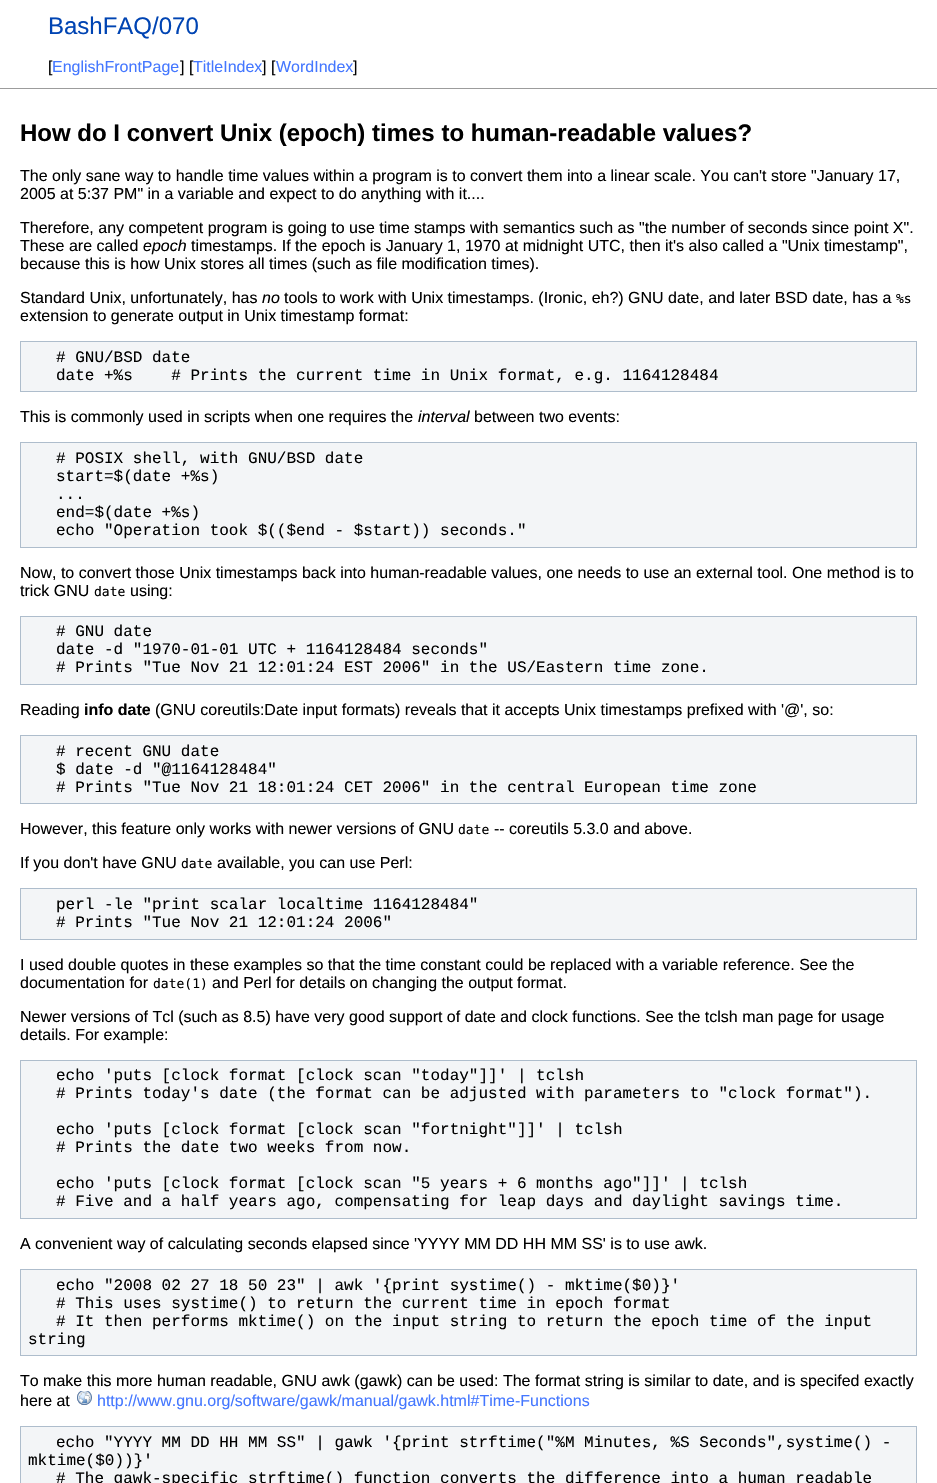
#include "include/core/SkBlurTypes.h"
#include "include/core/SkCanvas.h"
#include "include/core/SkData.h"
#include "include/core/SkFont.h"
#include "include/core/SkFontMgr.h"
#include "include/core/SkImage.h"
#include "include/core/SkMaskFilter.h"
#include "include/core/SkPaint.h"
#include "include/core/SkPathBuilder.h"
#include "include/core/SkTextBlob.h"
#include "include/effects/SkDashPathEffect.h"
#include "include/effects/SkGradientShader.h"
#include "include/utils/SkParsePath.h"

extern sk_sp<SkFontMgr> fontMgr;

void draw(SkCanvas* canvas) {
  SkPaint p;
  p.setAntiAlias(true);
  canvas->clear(SK_ColorWHITE);
  p.setColor(SkColorSetRGB(156, 156, 156));
  canvas->drawRect(SkRect::MakeLTRB(0, 88, 937, 89), p);
  p.setColor(SkColorSetRGB(243, 245, 247));
  canvas->drawRect(SkRect::MakeLTRB(20.5f, 341.5f, 916.5f, 391.5f), p);
  p.setStyle(SkPaint::kStroke_Style);
  p.setStrokeWidth(1);
  p.setColor(SkColorSetRGB(174, 189, 204));
  canvas->drawRect(SkRect::MakeLTRB(20.5f, 341.5f, 916.5f, 391.5f), p);
  p.setStyle(SkPaint::kFill_Style);
  p.setColor(SkColorSetRGB(243, 245, 247));
  canvas->drawRect(SkRect::MakeLTRB(20.5f, 442.5f, 916.5f, 547.5f), p);
  p.setStyle(SkPaint::kStroke_Style);
  p.setColor(SkColorSetRGB(174, 189, 204));
  canvas->drawRect(SkRect::MakeLTRB(20.5f, 442.5f, 916.5f, 547.5f), p);
  p.setStyle(SkPaint::kFill_Style);
  p.setColor(SkColorSetRGB(243, 245, 247));
  canvas->drawRect(SkRect::MakeLTRB(20.5f, 616.5f, 916.5f, 684.5f), p);
  p.setStyle(SkPaint::kStroke_Style);
  p.setColor(SkColorSetRGB(174, 189, 204));
  canvas->drawRect(SkRect::MakeLTRB(20.5f, 616.5f, 916.5f, 684.5f), p);
  p.setStyle(SkPaint::kFill_Style);
  p.setColor(SkColorSetRGB(243, 245, 247));
  canvas->drawRect(SkRect::MakeLTRB(20.5f, 735.5f, 916.5f, 803.5f), p);
  p.setStyle(SkPaint::kStroke_Style);
  p.setColor(SkColorSetRGB(174, 189, 204));
  canvas->drawRect(SkRect::MakeLTRB(20.5f, 735.5f, 916.5f, 803.5f), p);
  p.setStyle(SkPaint::kFill_Style);
  p.setColor(SkColorSetRGB(243, 245, 247));
  canvas->drawRect(SkRect::MakeLTRB(20.5f, 888.5f, 916.5f, 939.5f), p);
  p.setStyle(SkPaint::kStroke_Style);
  p.setColor(SkColorSetRGB(174, 189, 204));
  canvas->drawRect(SkRect::MakeLTRB(20.5f, 888.5f, 916.5f, 939.5f), p);
  p.setStyle(SkPaint::kFill_Style);
  p.setColor(SkColorSetRGB(243, 245, 247));
  canvas->drawRect(SkRect::MakeLTRB(20.5f, 1060.5f, 916.5f, 1218.5f), p);
  p.setStyle(SkPaint::kStroke_Style);
  p.setColor(SkColorSetRGB(174, 189, 204));
  canvas->drawRect(SkRect::MakeLTRB(20.5f, 1060.5f, 916.5f, 1218.5f), p);
  p.setStyle(SkPaint::kFill_Style);
  p.setColor(SkColorSetRGB(243, 245, 247));
  canvas->drawRect(SkRect::MakeLTRB(20.5f, 1269.5f, 916.5f, 1355.5f), p);
  p.setStyle(SkPaint::kStroke_Style);
  p.setColor(SkColorSetRGB(174, 189, 204));
  canvas->drawRect(SkRect::MakeLTRB(20.5f, 1269.5f, 916.5f, 1355.5f), p);
  canvas->drawImageRect(SkImages::DeferredFromEncodedData(SkData::MakeFromFileName("images/1.png")), SkRect::MakeLTRB(77, 1391, 92, 1405), SkSamplingOptions());
  p.setStyle(SkPaint::kFill_Style);
  p.setColor(SkColorSetRGB(243, 245, 247));
  canvas->drawRect(SkRect::MakeLTRB(20.5f, 1426.5f, 916.5f, 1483.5f), p);
  p.setStyle(SkPaint::kStroke_Style);
  p.setColor(SkColorSetRGB(174, 189, 204));
  canvas->drawRect(SkRect::MakeLTRB(20.5f, 1426.5f, 916.5f, 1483.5f), p);
  SkFont font1(fontMgr->matchFamilyStyle("Liberation Sans", SkFontStyle::Normal()), 24);
  font1.setSubpixel(true);
  p.setStyle(SkPaint::kFill_Style);
  p.setColor(SkColorSetRGB(0, 68, 179));
  canvas->drawString("BashFAQ/070", 48, 34, font1, p);
  SkFont font2(fontMgr->matchFamilyStyle("Liberation Sans", SkFontStyle::Normal()), 16);
  font2.setSubpixel(true);
  p.setColor(SK_ColorBLACK);
  canvas->drawString("[", 48, 72, font2, p);
  p.setColor(SkColorSetRGB(68, 119, 255));
  canvas->drawString("EnglishFrontPage", 52, 72, font2, p);
  p.setColor(SK_ColorBLACK);
  canvas->drawString("] [", 180, 72, font2, p);
  p.setColor(SkColorSetRGB(68, 119, 255));
  canvas->drawString("TitleIndex", 193, 72, font2, p);
  p.setColor(SK_ColorBLACK);
  canvas->drawString("] [", 262, 72, font2, p);
  p.setColor(SkColorSetRGB(68, 119, 255));
  canvas->drawString("WordIndex", 276, 72, font2, p);
  p.setColor(SK_ColorBLACK);
  canvas->drawString("]", 353, 72, font2, p);
  SkFont font3(fontMgr->matchFamilyStyle("Liberation Sans", SkFontStyle::Bold()), 24);
  font3.setSubpixel(true);
  canvas->drawString("How do I convert Unix (epoch) times to human-readable values?", 20, 141, font3, p);
  canvas->drawString("The only sane way to handle time values within a program is to convert them into a linear scale. You can't store \"January 17,", 20, 181, font2, p);
  canvas->drawString("2005 at 5:37 PM\" in a variable and expect to do anything with it....", 20, 199, font2, p);
  canvas->drawString("Therefore, any competent program is going to use time stamps with semantics such as \"the number of seconds since point X\".", 20, 233, font2, p);
  canvas->drawString("These are called", 20, 251, font2, p);
  SkFont font4(fontMgr->matchFamilyStyle("Liberation Sans", SkFontStyle::Italic()), 16);
  font4.setSubpixel(true);
  canvas->drawString("epoch", 143, 251, font4, p);
  canvas->drawString("timestamps. If the epoch is January 1, 1970 at midnight UTC, then it's also called a \"Unix timestamp\",", 191, 251, font2, p);
  canvas->drawString("because this is how Unix stores all times (such as file modification times).", 20, 269, font2, p);
  canvas->drawString("Standard Unix, unfortunately, has", 20, 303, font2, p);
  canvas->drawString("no", 262, 303, font4, p);
  canvas->drawString("tools to work with Unix timestamps. (Ironic, eh?) GNU date, and later BSD date, has a", 284, 303, font2, p);
  SkFont font5(fontMgr->matchFamilyStyle("DejaVu Sans Mono", SkFontStyle::Normal()), 13);
  font5.setSubpixel(true);
  canvas->drawString("%s", 896, 303, font5, p);
  canvas->drawString("extension to generate output in Unix timestamp format:", 20, 321, font2, p);
  SkFont font6(fontMgr->matchFamilyStyle("Liberation Mono", SkFontStyle::Normal()), 16);
  font6.setSubpixel(true);
  canvas->drawString("# GNU/BSD date", 56, 362, font6, p);
  canvas->drawString("date +%s    # Prints the current time in Unix format, e.g. 1164128484", 56, 380, font6, p);
  canvas->drawString("This is commonly used in scripts when one requires the", 20, 422, font2, p);
  canvas->drawString("interval", 418, 422, font4, p);
  canvas->drawString("between two events:", 474, 422, font2, p);
  canvas->drawString("# POSIX shell, with GNU/BSD date", 56, 463, font6, p);
  canvas->drawString("start=$(date +%s)", 56, 481, font6, p);
  canvas->drawString("...", 56, 499, font6, p);
  canvas->drawString("end=$(date +%s)", 56, 517, font6, p);
  canvas->drawString("echo \"Operation took $(($end - $start)) seconds.\"", 56, 535, font6, p);
  canvas->drawString("Now, to convert those Unix timestamps back into human-readable values, one needs to use an external tool. One method is to", 20, 578, font2, p);
  canvas->drawString("trick GNU", 20, 596, font2, p);
  canvas->drawString("date", 94, 596, font5, p);
  canvas->drawString("using:", 130, 596, font2, p);
  canvas->drawString("# GNU date", 56, 636, font6, p);
  canvas->drawString("date -d \"1970-01-01 UTC + 1164128484 seconds\"", 56, 654, font6, p);
  canvas->drawString("# Prints \"Tue Nov 21 12:01:24 EST 2006\" in the US/Eastern time zone.", 56, 672, font6, p);
  canvas->drawString("Reading", 20, 715, font2, p);
  SkFont font7(fontMgr->matchFamilyStyle("Liberation Sans", SkFontStyle::Bold()), 16);
  font7.setSubpixel(true);
  canvas->drawString("info date", 84, 715, font7, p);
  canvas->drawString("(GNU coreutils:Date input formats) reveals that it accepts Unix timestamps prefixed with '@', so:", 155, 715, font2, p);
  canvas->drawString("# recent GNU date", 56, 756, font6, p);
  canvas->drawString("$ date -d \"@1164128484\"", 56, 774, font6, p);
  canvas->drawString("# Prints \"Tue Nov 21 18:01:24 CET 2006\" in the central European time zone", 56, 792, font6, p);
  canvas->drawString("However, this feature only works with newer versions of GNU", 20, 834, font2, p);
  canvas->drawString("date", 458, 834, font5, p);
  canvas->drawString("-- coreutils 5.3.0 and above.", 494, 834, font2, p);
  canvas->drawString("If you don't have GNU", 20, 868, font2, p);
  canvas->drawString("date", 181, 868, font5, p);
  canvas->drawString("available, you can use Perl:", 217, 868, font2, p);
  canvas->drawString("perl -le \"print scalar localtime 1164128484\"", 56, 909, font6, p);
  canvas->drawString("# Prints \"Tue Nov 21 12:01:24 2006\"", 56, 927, font6, p);
  canvas->drawString("I used double quotes in these examples so that the time constant could be replaced with a variable reference. See the", 20, 970, font2, p);
  canvas->drawString("documentation for", 20, 988, font2, p);
  canvas->drawString("date(1)", 153, 988, font5, p);
  canvas->drawString("and Perl for details on changing the output format.", 212, 988, font2, p);
  canvas->drawString("Newer versions of Tcl (such as 8.5) have very good support of date and clock functions. See the tclsh man page for usage", 20, 1022, font2, p);
  canvas->drawString("details. For example:", 20, 1040, font2, p);
  canvas->drawString("echo 'puts [clock format [clock scan \"today\"]]' | tclsh", 56, 1080, font6, p);
  canvas->drawString("# Prints today's date (the format can be adjusted with parameters to \"clock format\").", 56, 1098, font6, p);
  canvas->drawString("echo 'puts [clock format [clock scan \"fortnight\"]]' | tclsh", 56, 1134, font6, p);
  canvas->drawString("# Prints the date two weeks from now.", 56, 1152, font6, p);
  canvas->drawString("echo 'puts [clock format [clock scan \"5 years + 6 months ago\"]]' | tclsh", 56, 1188, font6, p);
  canvas->drawString("# Five and a half years ago, compensating for leap days and daylight savings time.", 56, 1206, font6, p);
  canvas->drawString("A convenient way of calculating seconds elapsed since 'YYYY MM DD HH MM SS' is to use awk.", 20, 1249, font2, p);
  canvas->drawString("echo \"2008 02 27 18 50 23\" | awk '{print systime() - mktime($0)}'", 56, 1290, font6, p);
  canvas->drawString("# This uses systime() to return the current time in epoch format", 56, 1308, font6, p);
  canvas->drawString("# It then performs mktime() on the input string to return the epoch time of the input", 56, 1326, font6, p);
  canvas->drawString("string", 28, 1344, font6, p);
  canvas->drawString("To make this more human readable, GNU awk (gawk) can be used: The format string is similar to date, and is specifed exactly", 20, 1386, font2, p);
  canvas->drawString("here at", 20, 1406, font2, p);
  p.setColor(SkColorSetRGB(68, 119, 255));
  canvas->drawString("http://www.gnu.org/software/gawk/manual/gawk.html#Time-Functions", 97, 1406, font2, p);
  p.setColor(SK_ColorBLACK);
  canvas->drawString("echo \"YYYY MM DD HH MM SS\" | gawk '{print strftime(\"%M Minutes, %S Seconds\",systime() -", 56, 1447, font6, p);
  canvas->drawString("mktime($0))}'", 28, 1465, font6, p);
  canvas->drawString("# The gawk-specific strftime() function converts the difference into a human readable", 56, 1483, font6, p);
}
